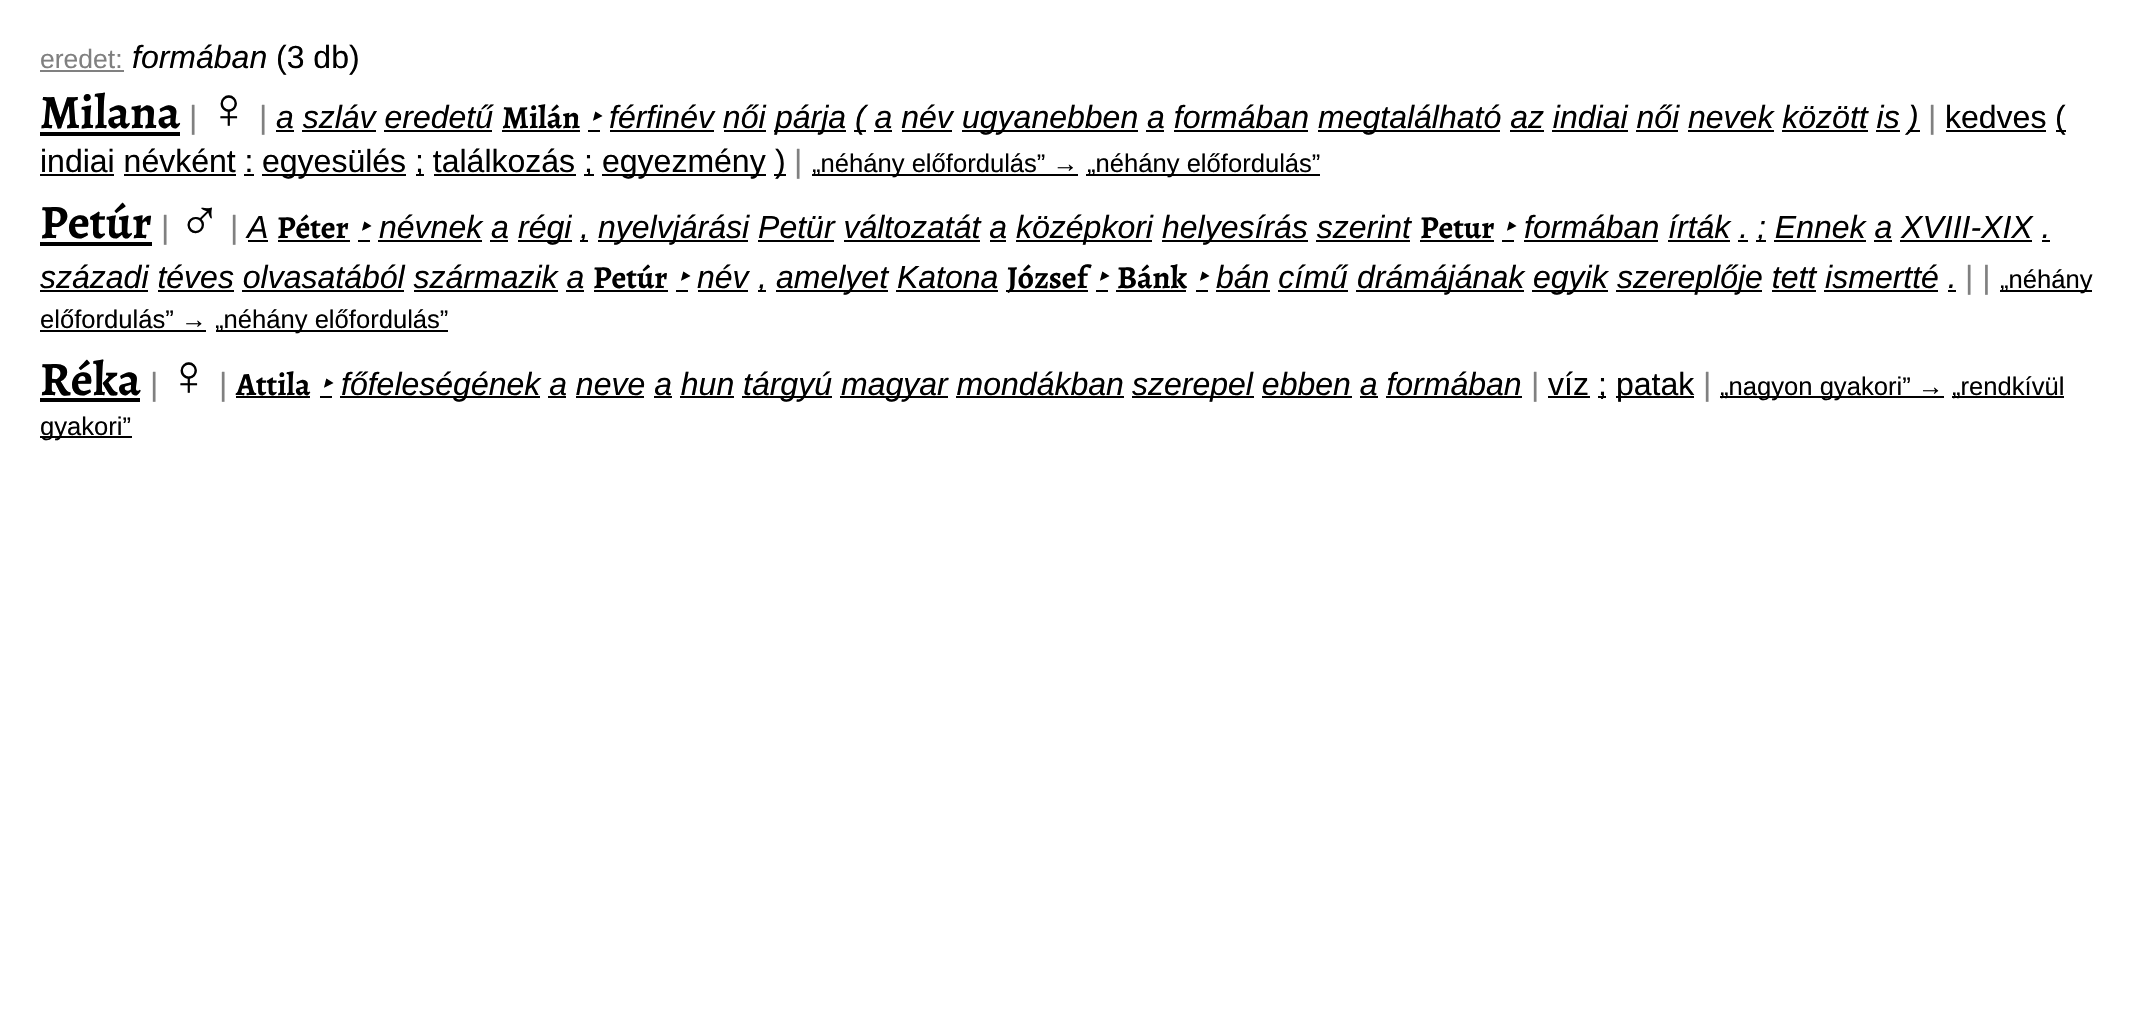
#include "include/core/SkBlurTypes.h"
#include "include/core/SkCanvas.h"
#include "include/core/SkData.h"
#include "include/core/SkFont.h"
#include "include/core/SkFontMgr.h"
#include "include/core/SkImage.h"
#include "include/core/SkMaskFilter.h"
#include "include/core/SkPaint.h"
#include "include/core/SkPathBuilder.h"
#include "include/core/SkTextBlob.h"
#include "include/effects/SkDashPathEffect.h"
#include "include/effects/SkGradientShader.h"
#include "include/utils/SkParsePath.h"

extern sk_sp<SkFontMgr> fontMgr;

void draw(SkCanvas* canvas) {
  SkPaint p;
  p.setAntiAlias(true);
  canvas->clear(SK_ColorWHITE);
  p.setColor(SkColorSetRGB(128, 128, 128));
  canvas->drawRect(SkRect::MakeLTRB(40, 70, 124, 72), p);
  p.setColor(SK_ColorBLACK);
  canvas->drawRect(SkRect::MakeLTRB(40, 132, 180, 136), p);
  canvas->drawRect(SkRect::MakeLTRB(276, 130, 294, 132), p);
  canvas->drawRect(SkRect::MakeLTRB(502, 130, 580, 132), p);
  canvas->drawRect(SkRect::MakeLTRB(588, 130, 600, 132), p);
  canvas->drawRect(SkRect::MakeLTRB(610, 130, 714, 132), p);
  canvas->drawRect(SkRect::MakeLTRB(774, 130, 846, 132), p);
  canvas->drawRect(SkRect::MakeLTRB(854, 130, 866, 132), p);
  canvas->drawRect(SkRect::MakeLTRB(962, 130, 1138, 132), p);
  canvas->drawRect(SkRect::MakeLTRB(1318, 130, 1500, 132), p);
  canvas->drawRect(SkRect::MakeLTRB(1908, 130, 1920, 132), p);
  canvas->drawRect(SkRect::MakeLTRB(1946, 130, 2046, 132), p);
  canvas->drawRect(SkRect::MakeLTRB(2056, 130, 2066, 132), p);
  canvas->drawRect(SkRect::MakeLTRB(302, 130, 376, 132), p);
  canvas->drawRect(SkRect::MakeLTRB(384, 130, 492, 132), p);
  canvas->drawRect(SkRect::MakeLTRB(724, 130, 766, 132), p);
  canvas->drawRect(SkRect::MakeLTRB(874, 130, 892, 132), p);
  canvas->drawRect(SkRect::MakeLTRB(902, 130, 952, 132), p);
  canvas->drawRect(SkRect::MakeLTRB(1146, 130, 1164, 132), p);
  canvas->drawRect(SkRect::MakeLTRB(1174, 130, 1308, 132), p);
  canvas->drawRect(SkRect::MakeLTRB(1510, 130, 1544, 132), p);
  canvas->drawRect(SkRect::MakeLTRB(1552, 130, 1628, 132), p);
  canvas->drawRect(SkRect::MakeLTRB(1636, 130, 1678, 132), p);
  canvas->drawRect(SkRect::MakeLTRB(1688, 130, 1774, 132), p);
  canvas->drawRect(SkRect::MakeLTRB(1782, 130, 1868, 132), p);
  canvas->drawRect(SkRect::MakeLTRB(1876, 130, 1900, 132), p);
  canvas->drawRect(SkRect::MakeLTRB(40, 174, 114, 176), p);
  canvas->drawRect(SkRect::MakeLTRB(262, 174, 406, 176), p);
  canvas->drawRect(SkRect::MakeLTRB(416, 174, 424, 176), p);
  canvas->drawRect(SkRect::MakeLTRB(584, 174, 594, 176), p);
  canvas->drawRect(SkRect::MakeLTRB(602, 174, 766, 176), p);
  canvas->drawRect(SkRect::MakeLTRB(774, 174, 786, 176), p);
  canvas->drawRect(SkRect::MakeLTRB(812, 174, 1078, 176), p);
  canvas->drawRect(SkRect::MakeLTRB(1086, 174, 1320, 176), p);
  canvas->drawRect(SkRect::MakeLTRB(124, 174, 236, 176), p);
  canvas->drawRect(SkRect::MakeLTRB(244, 174, 254, 176), p);
  canvas->drawRect(SkRect::MakeLTRB(434, 174, 576, 176), p);
  canvas->drawRect(SkRect::MakeLTRB(40, 242, 152, 246), p);
  canvas->drawRect(SkRect::MakeLTRB(248, 240, 268, 242), p);
  canvas->drawRect(SkRect::MakeLTRB(278, 240, 350, 242), p);
  canvas->drawRect(SkRect::MakeLTRB(358, 240, 370, 242), p);
  canvas->drawRect(SkRect::MakeLTRB(378, 240, 482, 242), p);
  canvas->drawRect(SkRect::MakeLTRB(518, 240, 572, 242), p);
  canvas->drawRect(SkRect::MakeLTRB(598, 240, 748, 242), p);
  canvas->drawRect(SkRect::MakeLTRB(1016, 240, 1152, 242), p);
  canvas->drawRect(SkRect::MakeLTRB(1162, 240, 1308, 242), p);
  canvas->drawRect(SkRect::MakeLTRB(1420, 240, 1494, 242), p);
  canvas->drawRect(SkRect::MakeLTRB(1502, 240, 1514, 242), p);
  canvas->drawRect(SkRect::MakeLTRB(1524, 240, 1658, 242), p);
  canvas->drawRect(SkRect::MakeLTRB(1756, 240, 1766, 242), p);
  canvas->drawRect(SkRect::MakeLTRB(490, 240, 508, 242), p);
  canvas->drawRect(SkRect::MakeLTRB(580, 240, 588, 242), p);
  canvas->drawRect(SkRect::MakeLTRB(758, 240, 834, 242), p);
  canvas->drawRect(SkRect::MakeLTRB(844, 240, 980, 242), p);
  canvas->drawRect(SkRect::MakeLTRB(990, 240, 1006, 242), p);
  canvas->drawRect(SkRect::MakeLTRB(1316, 240, 1410, 242), p);
  canvas->drawRect(SkRect::MakeLTRB(1668, 240, 1730, 242), p);
  canvas->drawRect(SkRect::MakeLTRB(1738, 240, 1748, 242), p);
  canvas->drawRect(SkRect::MakeLTRB(1774, 240, 1866, 242), p);
  canvas->drawRect(SkRect::MakeLTRB(1874, 240, 1892, 242), p);
  canvas->drawRect(SkRect::MakeLTRB(1900, 240, 2032, 242), p);
  canvas->drawRect(SkRect::MakeLTRB(2042, 240, 2050, 242), p);
  canvas->drawRect(SkRect::MakeLTRB(40, 290, 148, 292), p);
  canvas->drawRect(SkRect::MakeLTRB(594, 290, 668, 292), p);
  canvas->drawRect(SkRect::MakeLTRB(676, 290, 688, 292), p);
  canvas->drawRect(SkRect::MakeLTRB(698, 290, 748, 292), p);
  canvas->drawRect(SkRect::MakeLTRB(776, 290, 888, 292), p);
  canvas->drawRect(SkRect::MakeLTRB(1006, 290, 1088, 292), p);
  canvas->drawRect(SkRect::MakeLTRB(1096, 290, 1108, 292), p);
  canvas->drawRect(SkRect::MakeLTRB(1116, 290, 1186, 292), p);
  canvas->drawRect(SkRect::MakeLTRB(1196, 290, 1208, 292), p);
  canvas->drawRect(SkRect::MakeLTRB(1216, 290, 1270, 292), p);
  canvas->drawRect(SkRect::MakeLTRB(1356, 290, 1524, 292), p);
  canvas->drawRect(SkRect::MakeLTRB(1532, 290, 1608, 292), p);
  canvas->drawRect(SkRect::MakeLTRB(1616, 290, 1762, 292), p);
  canvas->drawRect(SkRect::MakeLTRB(2000, 290, 2092, 292), p);
  canvas->drawRect(SkRect::MakeLTRB(158, 290, 234, 292), p);
  canvas->drawRect(SkRect::MakeLTRB(242, 290, 404, 292), p);
  canvas->drawRect(SkRect::MakeLTRB(414, 290, 558, 292), p);
  canvas->drawRect(SkRect::MakeLTRB(566, 290, 584, 292), p);
  canvas->drawRect(SkRect::MakeLTRB(758, 290, 766, 292), p);
  canvas->drawRect(SkRect::MakeLTRB(896, 290, 998, 292), p);
  canvas->drawRect(SkRect::MakeLTRB(1278, 290, 1348, 292), p);
  canvas->drawRect(SkRect::MakeLTRB(1772, 290, 1816, 292), p);
  canvas->drawRect(SkRect::MakeLTRB(1824, 290, 1938, 292), p);
  canvas->drawRect(SkRect::MakeLTRB(1948, 290, 1956, 292), p);
  canvas->drawRect(SkRect::MakeLTRB(40, 330, 206, 332), p);
  canvas->drawRect(SkRect::MakeLTRB(216, 330, 448, 332), p);
  canvas->drawRect(SkRect::MakeLTRB(40, 398, 140, 402), p);
  canvas->drawRect(SkRect::MakeLTRB(236, 396, 310, 398), p);
  canvas->drawRect(SkRect::MakeLTRB(320, 396, 332, 398), p);
  canvas->drawRect(SkRect::MakeLTRB(340, 396, 540, 398), p);
  canvas->drawRect(SkRect::MakeLTRB(742, 396, 832, 398), p);
  canvas->drawRect(SkRect::MakeLTRB(840, 396, 948, 398), p);
  canvas->drawRect(SkRect::MakeLTRB(1132, 396, 1254, 398), p);
  canvas->drawRect(SkRect::MakeLTRB(1548, 396, 1590, 398), p);
  canvas->drawRect(SkRect::MakeLTRB(1598, 396, 1606, 398), p);
  canvas->drawRect(SkRect::MakeLTRB(1616, 396, 1694, 398), p);
  canvas->drawRect(SkRect::MakeLTRB(1720, 396, 1944, 398), p);
  canvas->drawRect(SkRect::MakeLTRB(1952, 396, 2064, 398), p);
  canvas->drawRect(SkRect::MakeLTRB(548, 396, 566, 398), p);
  canvas->drawRect(SkRect::MakeLTRB(576, 396, 644, 398), p);
  canvas->drawRect(SkRect::MakeLTRB(654, 396, 672, 398), p);
  canvas->drawRect(SkRect::MakeLTRB(680, 396, 734, 398), p);
  canvas->drawRect(SkRect::MakeLTRB(956, 396, 1124, 398), p);
  canvas->drawRect(SkRect::MakeLTRB(1262, 396, 1352, 398), p);
  canvas->drawRect(SkRect::MakeLTRB(1360, 396, 1378, 398), p);
  canvas->drawRect(SkRect::MakeLTRB(1386, 396, 1522, 398), p);
  canvas->drawRect(SkRect::MakeLTRB(40, 436, 132, 438), p);
  SkFont font1(fontMgr->matchFamilyStyle("Liberation Sans", SkFontStyle::Normal()), 26.5f);
  font1.setSubpixel(true);
  p.setColor(SkColorSetRGB(128, 128, 128));
  canvas->drawString("eredet:", 40, 68, font1, p);
  SkFont font2(fontMgr->matchFamilyStyle("Liberation Sans", SkFontStyle::Italic()), 32);
  font2.setSubpixel(true);
  p.setColor(SK_ColorBLACK);
  canvas->drawString("formában", 132, 68, font2, p);
  SkFont font3(fontMgr->matchFamilyStyle("Liberation Sans", SkFontStyle::Normal()), 32);
  font3.setSubpixel(true);
  canvas->drawString("(3 db)", 276, 68, font3, p);
  SkFont font4(fontMgr->matchFamilyStyle("Alegreya", SkFontStyle::Bold()), 48);
  font4.setSubpixel(true);
  canvas->drawString("Milana", 40, 128, font4, p);
  p.setColor(SkColorSetRGB(128, 128, 128));
  canvas->drawString("|", 189, 128, font3, p);
  SkFont font5(fontMgr->matchFamilyStyle("Liberation Sans", SkFontStyle::Bold()), 58);
  font5.setSubpixel(true);
  p.setColor(SK_ColorBLACK);
  canvas->drawString("♀", 207, 128, font5, p);
  p.setColor(SkColorSetRGB(128, 128, 128));
  canvas->drawString("|", 259, 128, font3, p);
  p.setColor(SK_ColorBLACK);
  canvas->drawString("a szláv eredetű", 276, 128, font2, p);
  SkFont font6(fontMgr->matchFamilyStyle("Alegreya", SkFontStyle::Bold()), 32);
  font6.setSubpixel(true);
  canvas->drawString("Milán", 502, 128, font6, p);
  SkFont font7(fontMgr->matchFamilyStyle("Noto Sans", SkFontStyle::Italic()), 32);
  font7.setSubpixel(true);
  canvas->drawString("‣", 589, 128, font7, p);
  canvas->drawString("férfinév női", 609, 128, font2, p);
  canvas->drawString("párja", 775, 128, font2, p);
  canvas->drawString("( a név", 855, 128, font2, p);
  canvas->drawString("ugyanebben a formában", 962, 128, font2, p);
  canvas->drawString("megtalálható az indiai női nevek között is", 1318, 128, font2, p);
  canvas->drawString(")", 1908, 128, font2, p);
  p.setColor(SkColorSetRGB(128, 128, 128));
  canvas->drawString("|", 1928, 128, font3, p);
  p.setColor(SK_ColorBLACK);
  canvas->drawString("kedves", 1945, 128, font3, p);
  canvas->drawString("(", 2055, 128, font3, p);
  canvas->drawString("indiai névként :", 40, 172, font3, p);
  canvas->drawString("egyesülés", 262, 172, font3, p);
  canvas->drawString("; találkozás", 415, 172, font3, p);
  canvas->drawString(";", 584, 172, font3, p);
  canvas->drawString("egyezmény", 602, 172, font3, p);
  canvas->drawString(")", 775, 172, font3, p);
  p.setColor(SkColorSetRGB(128, 128, 128));
  canvas->drawString("|", 794, 172, font3, p);
  SkFont font8(fontMgr->matchFamilyStyle("Liberation Sans", SkFontStyle::Normal()), 25.6f);
  font8.setSubpixel(true);
  p.setColor(SK_ColorBLACK);
  canvas->drawString("„néhány előfordulás” →", 812, 172, font8, p);
  canvas->drawString("„néhány előfordulás”", 1087, 172, font8, p);
  canvas->drawString("Petúr", 40, 238, font4, p);
  p.setColor(SkColorSetRGB(128, 128, 128));
  canvas->drawString("|", 161, 238, font3, p);
  p.setColor(SK_ColorBLACK);
  canvas->drawString("♂", 178, 238, font5, p);
  p.setColor(SkColorSetRGB(128, 128, 128));
  canvas->drawString("|", 230, 238, font3, p);
  p.setColor(SK_ColorBLACK);
  canvas->drawString("A", 247, 238, font2, p);
  canvas->drawString("Péter", 277, 238, font6, p);
  canvas->drawString("‣", 358, 238, font7, p);
  canvas->drawString("névnek a", 379, 238, font2, p);
  canvas->drawString("régi", 518, 238, font2, p);
  canvas->drawString("nyelvjárási Petür változatát a", 598, 238, font2, p);
  canvas->drawString("középkori", 1016, 238, font2, p);
  canvas->drawString("helyesírás szerint", 1162, 238, font2, p);
  canvas->drawString("Petur", 1420, 238, font6, p);
  canvas->drawString("‣", 1503, 238, font7, p);
  canvas->drawString("formában írták .", 1524, 238, font2, p);
  canvas->drawString("; Ennek a XVIII-XIX .", 1757, 238, font2, p);
  canvas->drawString(",", 580, 238, font2, p);
  canvas->drawString("századi téves olvasatából származik a", 40, 288, font2, p);
  canvas->drawString("Petúr", 593, 288, font6, p);
  canvas->drawString("‣", 677, 288, font7, p);
  canvas->drawString("név", 697, 288, font2, p);
  canvas->drawString("amelyet Katona", 776, 288, font2, p);
  canvas->drawString("József", 1007, 288, font6, p);
  canvas->drawString("‣", 1096, 288, font7, p);
  canvas->drawString("Bánk", 1117, 288, font6, p);
  canvas->drawString("‣", 1196, 288, font7, p);
  canvas->drawString("bán című", 1216, 288, font2, p);
  canvas->drawString("drámájának", 1357, 288, font2, p);
  canvas->drawString("egyik", 1533, 288, font2, p);
  canvas->drawString("szereplője tett ismertté .", 1617, 288, font2, p);
  p.setColor(SkColorSetRGB(128, 128, 128));
  canvas->drawString("| |", 1965, 288, font3, p);
  p.setColor(SK_ColorBLACK);
  canvas->drawString("„néhány", 2000, 288, font8, p);
  canvas->drawString(",", 758, 288, font2, p);
  canvas->drawString("előfordulás” →", 40, 328, font8, p);
  canvas->drawString("„néhány előfordulás”", 215, 328, font8, p);
  canvas->drawString("Réka", 40, 395, font4, p);
  p.setColor(SkColorSetRGB(128, 128, 128));
  canvas->drawString("|", 150, 395, font3, p);
  p.setColor(SK_ColorBLACK);
  canvas->drawString("♀", 167, 395, font5, p);
  p.setColor(SkColorSetRGB(128, 128, 128));
  canvas->drawString("|", 219, 395, font3, p);
  p.setColor(SK_ColorBLACK);
  canvas->drawString("Attila", 236, 395, font6, p);
  canvas->drawString("‣", 320, 395, font7, p);
  canvas->drawString("főfeleségének a neve a hun", 341, 395, font2, p);
  canvas->drawString("tárgyú", 743, 395, font2, p);
  canvas->drawString("magyar mondákban", 841, 395, font2, p);
  canvas->drawString("szerepel ebben a formában", 1132, 395, font2, p);
  p.setColor(SkColorSetRGB(128, 128, 128));
  canvas->drawString("|", 1531, 395, font3, p);
  p.setColor(SK_ColorBLACK);
  canvas->drawString("víz", 1548, 395, font3, p);
  canvas->drawString(";", 1598, 395, font3, p);
  canvas->drawString("patak", 1616, 395, font3, p);
  p.setColor(SkColorSetRGB(128, 128, 128));
  canvas->drawString("|", 1703, 395, font3, p);
  p.setColor(SK_ColorBLACK);
  canvas->drawString("„nagyon gyakori” →", 1720, 395, font8, p);
  canvas->drawString("„rendkívül", 1952, 395, font8, p);
  canvas->drawString("gyakori”", 40, 435, font8, p);
}
